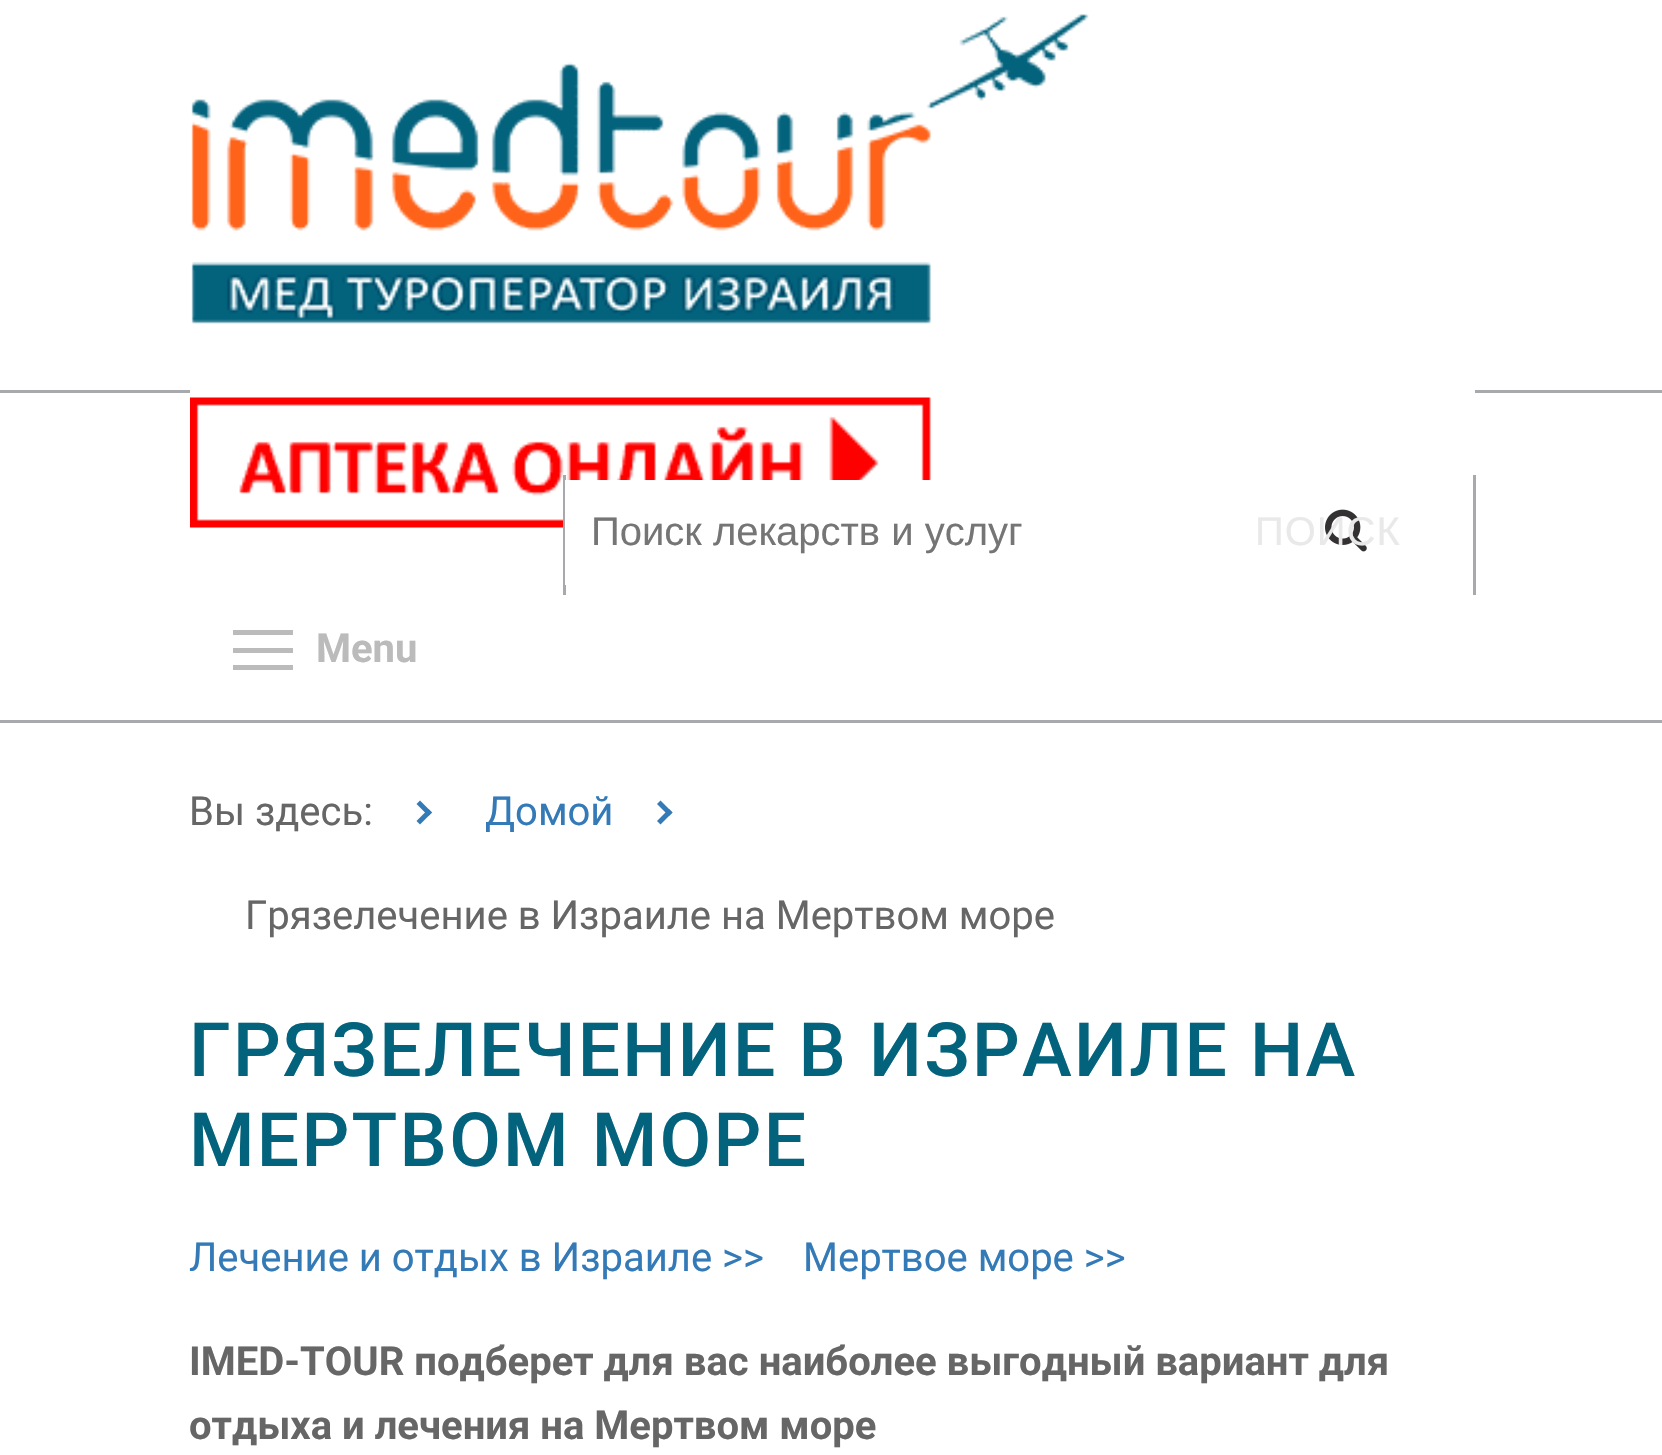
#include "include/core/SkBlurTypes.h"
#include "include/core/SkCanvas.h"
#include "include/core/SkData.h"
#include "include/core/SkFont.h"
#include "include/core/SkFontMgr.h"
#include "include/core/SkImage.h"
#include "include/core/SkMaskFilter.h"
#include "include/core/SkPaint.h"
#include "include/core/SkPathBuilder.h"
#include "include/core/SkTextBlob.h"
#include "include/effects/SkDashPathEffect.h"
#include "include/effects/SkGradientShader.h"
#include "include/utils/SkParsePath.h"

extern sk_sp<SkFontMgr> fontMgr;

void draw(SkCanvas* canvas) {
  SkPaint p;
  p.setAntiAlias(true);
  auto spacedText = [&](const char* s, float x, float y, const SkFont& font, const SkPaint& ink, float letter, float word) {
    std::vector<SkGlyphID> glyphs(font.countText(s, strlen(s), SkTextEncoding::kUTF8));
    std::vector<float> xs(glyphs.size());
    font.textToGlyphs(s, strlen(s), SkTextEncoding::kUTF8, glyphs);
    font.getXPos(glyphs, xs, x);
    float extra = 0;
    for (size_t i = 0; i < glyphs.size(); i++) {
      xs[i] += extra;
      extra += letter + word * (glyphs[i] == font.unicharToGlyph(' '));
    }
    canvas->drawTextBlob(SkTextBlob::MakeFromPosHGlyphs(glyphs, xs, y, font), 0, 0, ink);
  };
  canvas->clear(SK_ColorWHITE);
  p.setColor(SkColorSetRGB(167, 169, 172));
  canvas->drawRect(SkRect::MakeLTRB(0, 390, 1662, 393), p);
  canvas->drawRect(SkRect::MakeLTRB(0, 720, 1662, 723), p);
  p.setColor(SK_ColorWHITE);
  canvas->drawRect(SkRect::MakeLTRB(190, 390, 1475, 393), p);
  canvas->drawImageRect(SkImages::DeferredFromEncodedData(SkData::MakeFromFileName("images/1.png")), SkRect::MakeLTRB(191, 14, 1089, 324), SkSamplingOptions());
  canvas->drawImageRect(SkImages::DeferredFromEncodedData(SkData::MakeFromFileName("images/2.png")), SkRect::MakeLTRB(190, 397, 931, 528), SkSamplingOptions());
  p.setColor(SkColorSetRGB(167, 169, 172));
  canvas->drawRect(SkRect::MakeLTRB(1473, 475, 1476, 595), p);
  canvas->drawRect(SkRect::MakeLTRB(563, 475, 566, 595), p);
  p.setColor(SK_ColorWHITE);
  canvas->drawRect(SkRect::MakeLTRB(565, 480, 931, 585), p);
  canvas->drawImageRect(SkImages::DeferredFromEncodedData(SkData::MakeFromFileName("images/3.png")), SkRect::MakeLTRB(1325, 509, 1367, 552), SkSamplingOptions());
  p.setColor(SkColorSetRGB(188, 187, 187));
  canvas->drawRect(SkRect::MakeLTRB(233, 648, 293, 653), p);
  canvas->drawRect(SkRect::MakeLTRB(233, 630, 293, 635), p);
  canvas->drawRect(SkRect::MakeLTRB(233, 665, 293, 670), p);
  p.setColor(SkColorSetRGB(51, 122, 183));
  canvas->drawPath(SkPathBuilder().moveTo(420, 800.5f).lineTo(432, 812.5f).lineTo(428.5f, 816).lineTo(416.5f, 804).close().detach(), p);
  canvas->drawPath(SkPathBuilder().moveTo(428.5f, 809).lineTo(432, 812.5f).lineTo(420, 824.5f).lineTo(416.5f, 821).close().detach(), p);
  canvas->drawPath(SkPathBuilder().moveTo(660.5f, 800.5f).lineTo(672.5f, 812.5f).lineTo(669, 816).lineTo(657, 804).close().detach(), p);
  canvas->drawPath(SkPathBuilder().moveTo(669, 809).lineTo(672.5f, 812.5f).lineTo(660.5f, 824.5f).lineTo(657, 821).close().detach(), p);
  SkFont font1(fontMgr->matchFamilyStyle("Liberation Sans", SkFontStyle::Normal()), 40);
  font1.setSubpixel(true);
  p.setColor(SkColorSetRGB(117, 117, 117));
  canvas->drawString("Поиск лекарств и услуг", 591, 545, font1, p);
  p.setColor(SkColorSetRGB(234, 233, 234));
  spacedText("ПОИСК", 1255, 545, font1, p, 1, 0);
  SkFont font2(fontMgr->matchFamilyStyle("Roboto", SkFontStyle::Bold()), 40);
  font2.setSubpixel(true);
  p.setColor(SkColorSetRGB(188, 187, 187));
  canvas->drawString("Menu", 316, 662, font2, p);
  SkFont font3(fontMgr->matchFamilyStyle("Roboto", SkFontStyle::Normal()), 40);
  font3.setSubpixel(true);
  p.setColor(SkColorSetRGB(102, 102, 102));
  canvas->drawString("Вы здесь:", 189, 825, font3, p);
  p.setColor(SkColorSetRGB(51, 122, 183));
  canvas->drawString("Домой", 485, 825, font3, p);
  p.setColor(SkColorSetRGB(102, 102, 102));
  canvas->drawString("Грязелечение в Израиле на Мертвом море", 245, 929, font3, p);
  SkFont font4(fontMgr->matchFamilyStyle("Roboto", SkFontStyle(500, SkFontStyle::kNormal_Width, SkFontStyle::kUpright_Slant)), 75);
  font4.setSubpixel(true);
  p.setColor(SkColorSetRGB(3, 98, 124));
  spacedText("ГРЯЗЕЛЕЧЕНИЕ В ИЗРАИЛЕ НА", 189, 1076, font4, p, 2.25f, 0);
  spacedText("МЕРТВОМ МОРЕ", 189, 1166, font4, p, 2.25f, 0);
  p.setColor(SkColorSetRGB(51, 122, 183));
  canvas->drawString("Лечение и отдых в Израиле >>", 189, 1271, font3, p);
  canvas->drawString("Мертвое море >>", 803, 1271, font3, p);
  p.setColor(SkColorSetRGB(102, 102, 102));
  canvas->drawString("IMED-TOUR подберет для вас наиболее выгодный вариант для", 189, 1375, font2, p);
  canvas->drawString("отдыха и лечения на Мертвом море", 189, 1439, font2, p);
}
